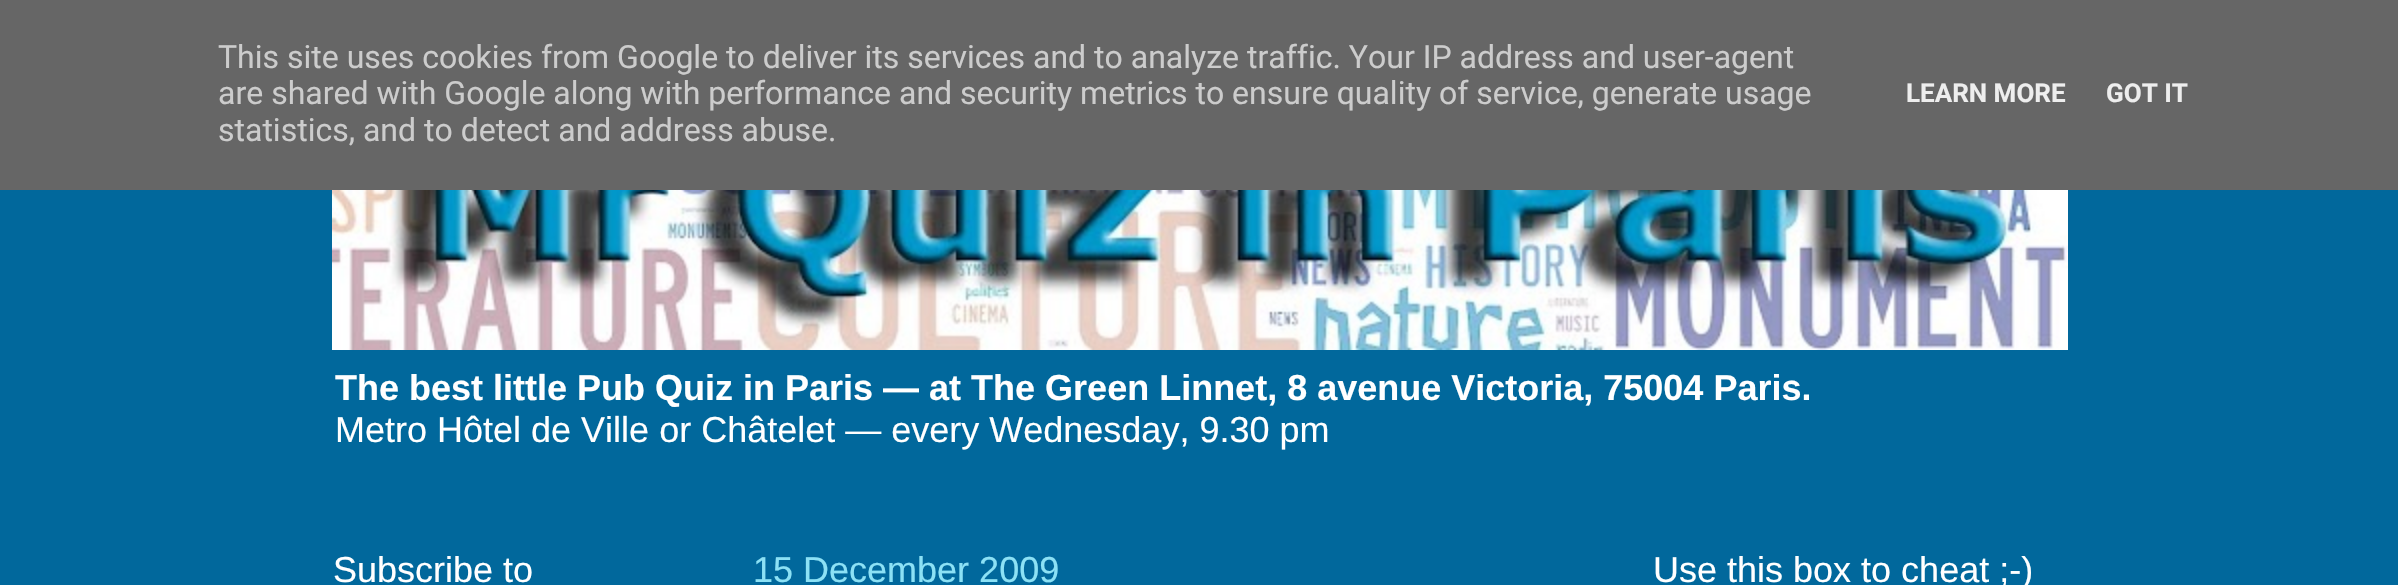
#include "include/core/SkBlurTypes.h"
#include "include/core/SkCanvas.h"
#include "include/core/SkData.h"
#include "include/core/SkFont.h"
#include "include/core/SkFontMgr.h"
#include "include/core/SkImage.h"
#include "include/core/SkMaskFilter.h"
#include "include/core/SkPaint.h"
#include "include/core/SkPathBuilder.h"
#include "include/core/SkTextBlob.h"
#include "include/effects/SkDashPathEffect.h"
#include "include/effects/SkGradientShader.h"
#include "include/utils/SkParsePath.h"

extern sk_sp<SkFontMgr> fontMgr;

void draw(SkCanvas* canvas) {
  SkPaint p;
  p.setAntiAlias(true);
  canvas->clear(SkColorSetRGB(1, 104, 156));
  p.setColor(SkColorSetRGB(102, 102, 102));
  canvas->drawRect(SkRect::MakeLTRB(0, 0, 2398, 190), p);
  canvas->drawImageRect(SkImages::DeferredFromEncodedData(SkData::MakeFromFileName("images/1.png")), SkRect::MakeLTRB(332, 190, 2068, 350), SkSamplingOptions());
  SkFont font1(fontMgr->matchFamilyStyle("Roboto", SkFontStyle::Normal()), 32);
  font1.setSubpixel(true);
  p.setColor(SkColorSetRGB(204, 204, 204));
  canvas->drawString("This site uses cookies from Google to deliver its services and to analyze traffic. Your IP address and user-agent", 218, 68, font1, p);
  canvas->drawString("are shared with Google along with performance and security metrics to ensure quality of service, generate usage", 218, 104, font1, p);
  canvas->drawString("statistics, and to detect and address abuse.", 218, 141, font1, p);
  SkFont font2(fontMgr->matchFamilyStyle("Roboto", SkFontStyle::Bold()), 26);
  font2.setSubpixel(true);
  p.setColor(SkColorSetRGB(238, 238, 238));
  canvas->drawString("LEARN MORE", 1906, 102, font2, p);
  canvas->drawString("GOT IT", 2106, 102, font2, p);
  SkFont font3(fontMgr->matchFamilyStyle("Liberation Sans", SkFontStyle::Bold()), 36);
  font3.setSubpixel(true);
  p.setColor(SK_ColorWHITE);
  canvas->drawString("The best little Pub Quiz in Paris — at The Green Linnet, 8 avenue Victoria, 75004 Paris.", 335, 400, font3, p);
  SkFont font4(fontMgr->matchFamilyStyle("Liberation Sans", SkFontStyle::Normal()), 36);
  font4.setSubpixel(true);
  canvas->drawString("Metro Hôtel de Ville or Châtelet — every Wednesday, 9.30 pm", 335, 442, font4, p);
  canvas->drawString("Subscribe to", 333, 582, font4, p);
  p.setColor(SkColorSetRGB(140, 225, 245));
  canvas->drawString("15 December 2009", 753, 582, font4, p);
  p.setColor(SK_ColorWHITE);
  canvas->drawString("Use this box to cheat ;-)", 1653, 582, font4, p);
}
